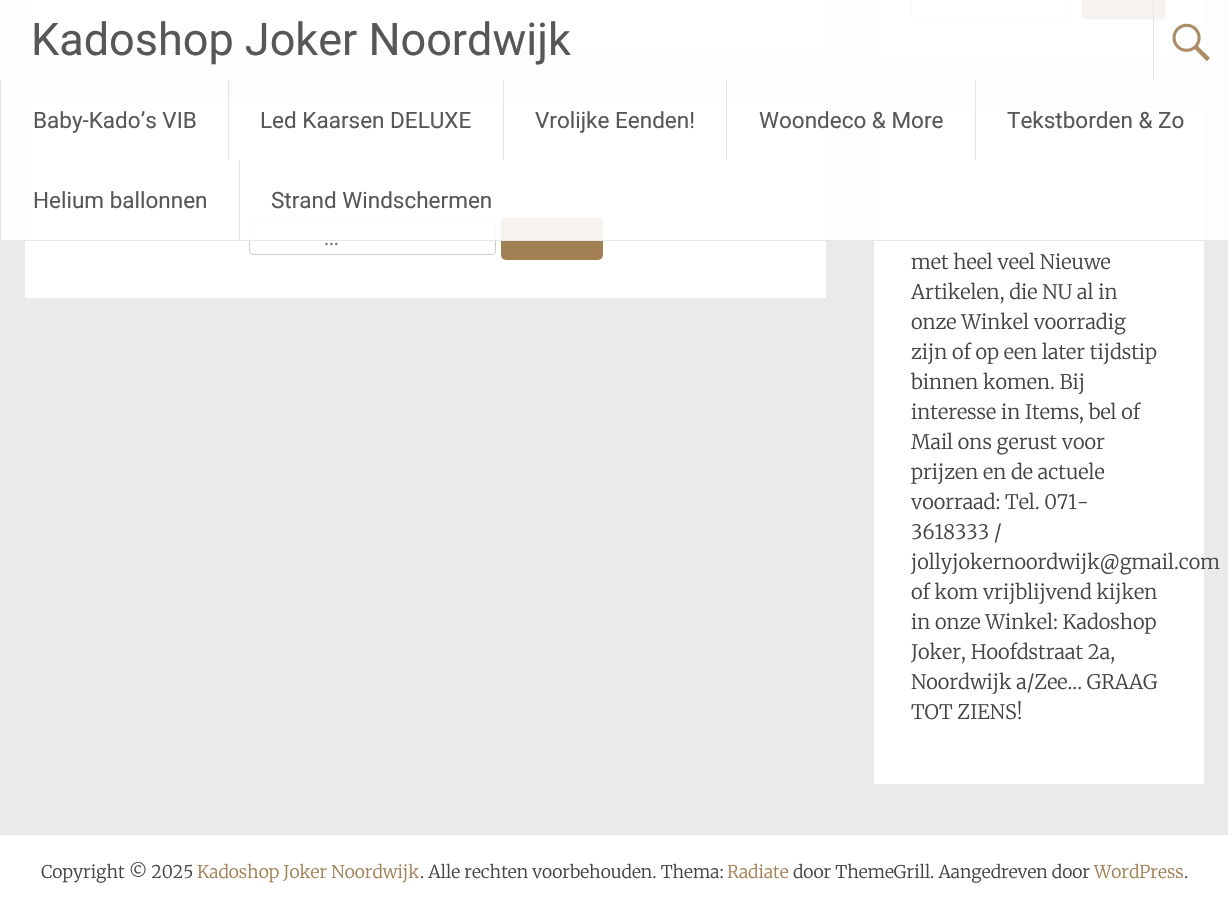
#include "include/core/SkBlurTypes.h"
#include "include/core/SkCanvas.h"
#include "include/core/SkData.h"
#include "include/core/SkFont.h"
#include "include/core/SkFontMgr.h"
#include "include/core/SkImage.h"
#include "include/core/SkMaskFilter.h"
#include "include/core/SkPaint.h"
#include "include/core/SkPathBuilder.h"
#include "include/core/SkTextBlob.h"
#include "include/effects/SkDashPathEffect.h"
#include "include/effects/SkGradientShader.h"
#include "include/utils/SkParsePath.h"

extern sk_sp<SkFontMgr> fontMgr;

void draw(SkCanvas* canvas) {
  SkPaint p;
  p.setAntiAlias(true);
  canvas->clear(SK_ColorWHITE);
  p.setColor(SkColorSetRGB(234, 234, 234));
  canvas->drawRect(SkRect::MakeLTRB(0, 0, 1228, 834), p);
  p.setColor(SK_ColorWHITE);
  canvas->drawRect(SkRect::MakeLTRB(25, 0, 826, 51), p);
  canvas->drawRect(SkRect::MakeLTRB(25, 101, 826, 298), p);
  p.setStyle(SkPaint::kStroke_Style);
  p.setStrokeWidth(1);
  p.setColor(SkColorSetRGB(204, 204, 204));
  canvas->drawRoundRect(SkRect::MakeLTRB(249.5f, 220.5f, 495.5f, 254.5f), 3.5f, 3.5f, p);
  p.setStyle(SkPaint::kFill_Style);
  p.setColor(SkColorSetRGB(163, 127, 84));
  canvas->drawRoundRect(SkRect::MakeLTRB(501, 218, 603, 260), 5, 5, p);
  p.setColor(SK_ColorWHITE);
  canvas->drawRect(SkRect::MakeLTRB(874, 0, 1204, 58), p);
  p.setStyle(SkPaint::kStroke_Style);
  p.setColor(SkColorSetRGB(204, 204, 204));
  canvas->drawRoundRect(SkRect::MakeLTRB(911.5f, -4.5f, 1069.5f, 19.5f), 3.5f, 3.5f, p);
  p.setStyle(SkPaint::kFill_Style);
  p.setColor(SkColorSetRGB(163, 127, 84));
  canvas->drawRoundRect(SkRect::MakeLTRB(1081.5f, -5.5f, 1165.5f, 19.5f), 4.5f, 4.5f, p);
  p.setStyle(SkPaint::kStroke_Style);
  p.setColor(SkColorSetRGB(204, 204, 204));
  canvas->drawRoundRect(SkRect::MakeLTRB(1081.5f, -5.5f, 1165.5f, 19.5f), 4.5f, 4.5f, p);
  p.setStyle(SkPaint::kFill_Style);
  p.setColor(SK_ColorWHITE);
  canvas->drawRect(SkRect::MakeLTRB(874, 108, 1204, 784), p);
  p.setColor(SkColorSetARGB(230, 255, 255, 255));
  canvas->drawRect(SkRect::MakeLTRB(0, 0, 1228, 241), p);
  p.setColor(SkColorSetARGB(230, 225, 228, 230));
  canvas->drawRect(SkRect::MakeLTRB(0, 240, 1228, 241), p);
  canvas->drawRect(SkRect::MakeLTRB(1153, 0, 1154, 80), p);
  canvas->drawImageRect(SkImages::DeferredFromEncodedData(SkData::MakeFromFileName("images/1.png")), SkRect::MakeLTRB(1172, 23, 1210, 62), SkSamplingOptions());
  p.setColor(SkColorSetRGB(226, 229, 230));
  canvas->drawRect(SkRect::MakeLTRB(0, 80, 1, 240), p);
  p.setColor(SkColorSetARGB(230, 225, 228, 230));
  canvas->drawRect(SkRect::MakeLTRB(228, 80, 229, 160), p);
  canvas->drawRect(SkRect::MakeLTRB(503, 80, 504, 160), p);
  p.setColor(SkColorSetRGB(228, 231, 232));
  canvas->drawRect(SkRect::MakeLTRB(726, 80, 727, 160), p);
  canvas->drawRect(SkRect::MakeLTRB(975, 80, 976, 160), p);
  p.setColor(SkColorSetARGB(230, 225, 228, 230));
  canvas->drawRect(SkRect::MakeLTRB(239, 160, 240, 240), p);
  p.setColor(SkColorSetRGB(225, 228, 230));
  canvas->drawRect(SkRect::MakeLTRB(0, 834, 1228, 835), p);
  SkFont font1(fontMgr->matchFamilyStyle("Roboto", SkFontStyle::Normal()), 45);
  font1.setSubpixel(true);
  p.setColor(SkColorSetRGB(87, 87, 87));
  canvas->drawString("Kadoshop Joker Noordwijk", 31, 55, font1, p);
  SkFont font2(fontMgr->matchFamilyStyle("Roboto", SkFontStyle::Normal()), 22.5f);
  font2.setSubpixel(true);
  canvas->drawString("Baby-Kado’s VIB", 33, 128, font2, p);
  canvas->drawString("Led Kaarsen DELUXE", 260, 128, font2, p);
  canvas->drawString("Vrolijke Eenden!", 535, 128, font2, p);
  canvas->drawString("Woondeco & More", 759, 128, font2, p);
  canvas->drawString("Tekstborden & Zo", 1007, 128, font2, p);
  canvas->drawString("Helium ballonnen", 33, 208, font2, p);
  canvas->drawString("Strand Windschermen", 271, 208, font2, p);
  SkFont font3(fontMgr->matchFamilyStyle("Merriweather", SkFontStyle(300, SkFontStyle::kNormal_Width, SkFontStyle::kUpright_Slant)), 20);
  font3.setSubpixel(true);
  p.setColor(SkColorSetRGB(117, 117, 117));
  canvas->drawString("…", 324, 245, font3, p);
  p.setColor(SkColorSetRGB(68, 68, 68));
  canvas->drawString("met heel veel Nieuwe", 911, 269, font3, p);
  canvas->drawString("Artikelen, die NU al in", 911, 299, font3, p);
  canvas->drawString("onze Winkel voorradig", 911, 329, font3, p);
  canvas->drawString("zijn of op een later tijdstip", 911, 359, font3, p);
  canvas->drawString("binnen komen. Bij", 911, 389, font3, p);
  canvas->drawString("interesse in Items, bel of", 911, 419, font3, p);
  canvas->drawString("Mail ons gerust voor", 911, 449, font3, p);
  canvas->drawString("prijzen en de actuele", 911, 479, font3, p);
  canvas->drawString("voorraad: Tel. 071-", 911, 509, font3, p);
  canvas->drawString("3618333 /", 911, 539, font3, p);
  canvas->drawString("jollyjokernoordwijk@gmail.com", 911, 569, font3, p);
  canvas->drawString("of kom vrijblijvend kijken", 911, 599, font3, p);
  canvas->drawString("in onze Winkel: Kadoshop", 911, 629, font3, p);
  canvas->drawString("Joker, Hoofdstraat 2a,", 911, 659, font3, p);
  canvas->drawString("Noordwijk a/Zee... GRAAG", 911, 689, font3, p);
  canvas->drawString("TOT ZIENS!", 911, 719, font3, p);
  SkFont font4(fontMgr->matchFamilyStyle("Merriweather", SkFontStyle(300, SkFontStyle::kNormal_Width, SkFontStyle::kUpright_Slant)), 17.5f);
  font4.setSubpixel(true);
  canvas->drawString("Copyright © 2025", 41, 878, font4, p);
  p.setColor(SkColorSetRGB(163, 127, 84));
  canvas->drawString("Kadoshop Joker Noordwijk", 197, 878, font4, p);
  p.setColor(SkColorSetRGB(68, 68, 68));
  canvas->drawString(". Alle rechten voorbehouden. Thema:", 420, 878, font4, p);
  p.setColor(SkColorSetRGB(163, 127, 84));
  canvas->drawString("Radiate", 727, 878, font4, p);
  p.setColor(SkColorSetRGB(68, 68, 68));
  canvas->drawString("door ThemeGrill. Aangedreven door", 793, 878, font4, p);
  p.setColor(SkColorSetRGB(163, 127, 84));
  canvas->drawString("WordPress", 1094, 878, font4, p);
  p.setColor(SkColorSetRGB(68, 68, 68));
  canvas->drawString(".", 1184, 878, font4, p);
}
